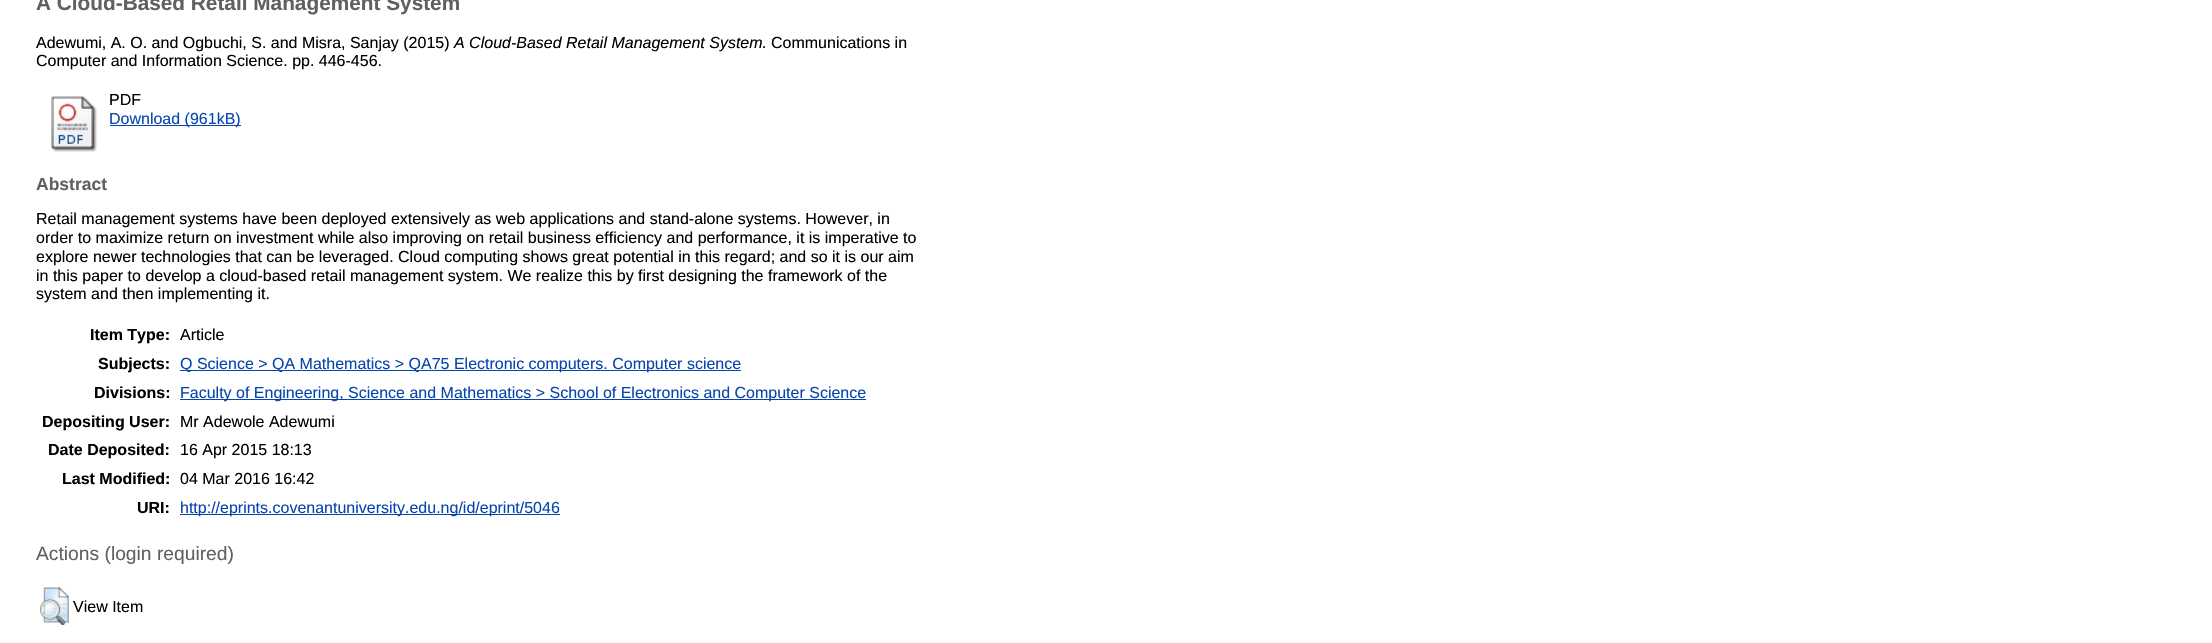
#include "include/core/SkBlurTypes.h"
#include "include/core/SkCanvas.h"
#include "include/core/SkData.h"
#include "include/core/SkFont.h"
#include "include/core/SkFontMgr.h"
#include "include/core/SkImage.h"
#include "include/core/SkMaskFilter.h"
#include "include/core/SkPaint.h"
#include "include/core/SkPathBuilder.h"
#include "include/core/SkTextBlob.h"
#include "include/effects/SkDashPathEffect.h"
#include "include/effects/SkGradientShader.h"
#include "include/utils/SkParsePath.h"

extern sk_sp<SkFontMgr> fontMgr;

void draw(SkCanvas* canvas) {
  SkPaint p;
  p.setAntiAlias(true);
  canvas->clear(SK_ColorWHITE);
  canvas->drawImageRect(SkImages::DeferredFromEncodedData(SkData::MakeFromFileName("images/1.png")), SkRect::MakeLTRB(51, 96, 97, 152), SkSamplingOptions());
  p.setColor(SkColorSetRGB(6, 69, 173));
  canvas->drawRect(SkRect::MakeLTRB(110, 125, 241, 126), p);
  canvas->drawRect(SkRect::MakeLTRB(180, 370, 741, 371), p);
  canvas->drawRect(SkRect::MakeLTRB(180, 399, 866, 400), p);
  canvas->drawRect(SkRect::MakeLTRB(180, 514, 560, 515), p);
  canvas->drawImageRect(SkImages::DeferredFromEncodedData(SkData::MakeFromFileName("images/2.png")), SkRect::MakeLTRB(40, 587, 69, 625), SkSamplingOptions());
  SkFont font1(fontMgr->matchFamilyStyle("Liberation Sans", SkFontStyle::Bold()), 20.8f);
  font1.setSubpixel(true);
  p.setColor(SkColorSetRGB(96, 96, 96));
  canvas->drawString("A Cloud-Based Retail Management System", 36, 10, font1, p);
  SkFont font2(fontMgr->matchFamilyStyle("Liberation Sans", SkFontStyle::Normal()), 16);
  font2.setSubpixel(true);
  p.setColor(SK_ColorBLACK);
  canvas->drawString("Adewumi, A. O. and Ogbuchi, S. and Misra, Sanjay (2015)", 36, 48, font2, p);
  SkFont font3(fontMgr->matchFamilyStyle("Liberation Sans", SkFontStyle::Italic()), 16);
  font3.setSubpixel(true);
  canvas->drawString("A Cloud-Based Retail Management System.", 454, 48, font3, p);
  canvas->drawString("Communications in", 771, 48, font2, p);
  canvas->drawString("Computer and Information Science. pp. 446-456.", 36, 66, font2, p);
  canvas->drawString("PDF", 109, 105, font2, p);
  p.setColor(SkColorSetRGB(6, 69, 173));
  canvas->drawString("Download (961kB)", 109, 124, font2, p);
  SkFont font4(fontMgr->matchFamilyStyle("Liberation Sans", SkFontStyle::Bold()), 17.5f);
  font4.setSubpixel(true);
  p.setColor(SkColorSetRGB(96, 96, 96));
  canvas->drawString("Abstract", 36, 190, font4, p);
  p.setColor(SK_ColorBLACK);
  canvas->drawString("Retail management systems have been deployed extensively as web applications and stand-alone systems. However, in", 36, 224, font2, p);
  canvas->drawString("order to maximize return on investment while also improving on retail business efficiency and performance, it is imperative to", 36, 243, font2, p);
  canvas->drawString("explore newer technologies that can be leveraged. Cloud computing shows great potential in this regard; and so it is our aim", 36, 262, font2, p);
  canvas->drawString("in this paper to develop a cloud-based retail management system. We realize this by first designing the framework of the", 36, 281, font2, p);
  canvas->drawString("system and then implementing it.", 36, 299, font2, p);
  SkFont font5(fontMgr->matchFamilyStyle("Liberation Sans", SkFontStyle::Bold()), 16);
  font5.setSubpixel(true);
  canvas->drawString("Item Type:", 90, 340, font5, p);
  canvas->drawString("Article", 180, 340, font2, p);
  canvas->drawString("Subjects:", 98, 369, font5, p);
  p.setColor(SkColorSetRGB(6, 69, 173));
  canvas->drawString("Q Science > QA Mathematics > QA75 Electronic computers. Computer science", 180, 369, font2, p);
  p.setColor(SK_ColorBLACK);
  canvas->drawString("Divisions:", 94, 398, font5, p);
  p.setColor(SkColorSetRGB(6, 69, 173));
  canvas->drawString("Faculty of Engineering, Science and Mathematics > School of Electronics and Computer Science", 180, 398, font2, p);
  p.setColor(SK_ColorBLACK);
  canvas->drawString("Depositing User:", 42, 427, font5, p);
  canvas->drawString("Mr Adewole Adewumi", 180, 427, font2, p);
  canvas->drawString("Date Deposited:", 48, 455, font5, p);
  canvas->drawString("16 Apr 2015 18:13", 180, 455, font2, p);
  canvas->drawString("Last Modified:", 62, 484, font5, p);
  canvas->drawString("04 Mar 2016 16:42", 180, 484, font2, p);
  canvas->drawString("URI:", 137, 513, font5, p);
  p.setColor(SkColorSetRGB(6, 69, 173));
  canvas->drawString("http://eprints.covenantuniversity.edu.ng/id/eprint/5046", 180, 513, font2, p);
  SkFont font6(fontMgr->matchFamilyStyle("Liberation Sans", SkFontStyle::Normal()), 19.25f);
  font6.setSubpixel(true);
  p.setColor(SkColorSetRGB(96, 96, 96));
  canvas->drawString("Actions (login required)", 36, 560, font6, p);
  p.setColor(SK_ColorBLACK);
  canvas->drawString("View Item", 73, 612, font2, p);
}
